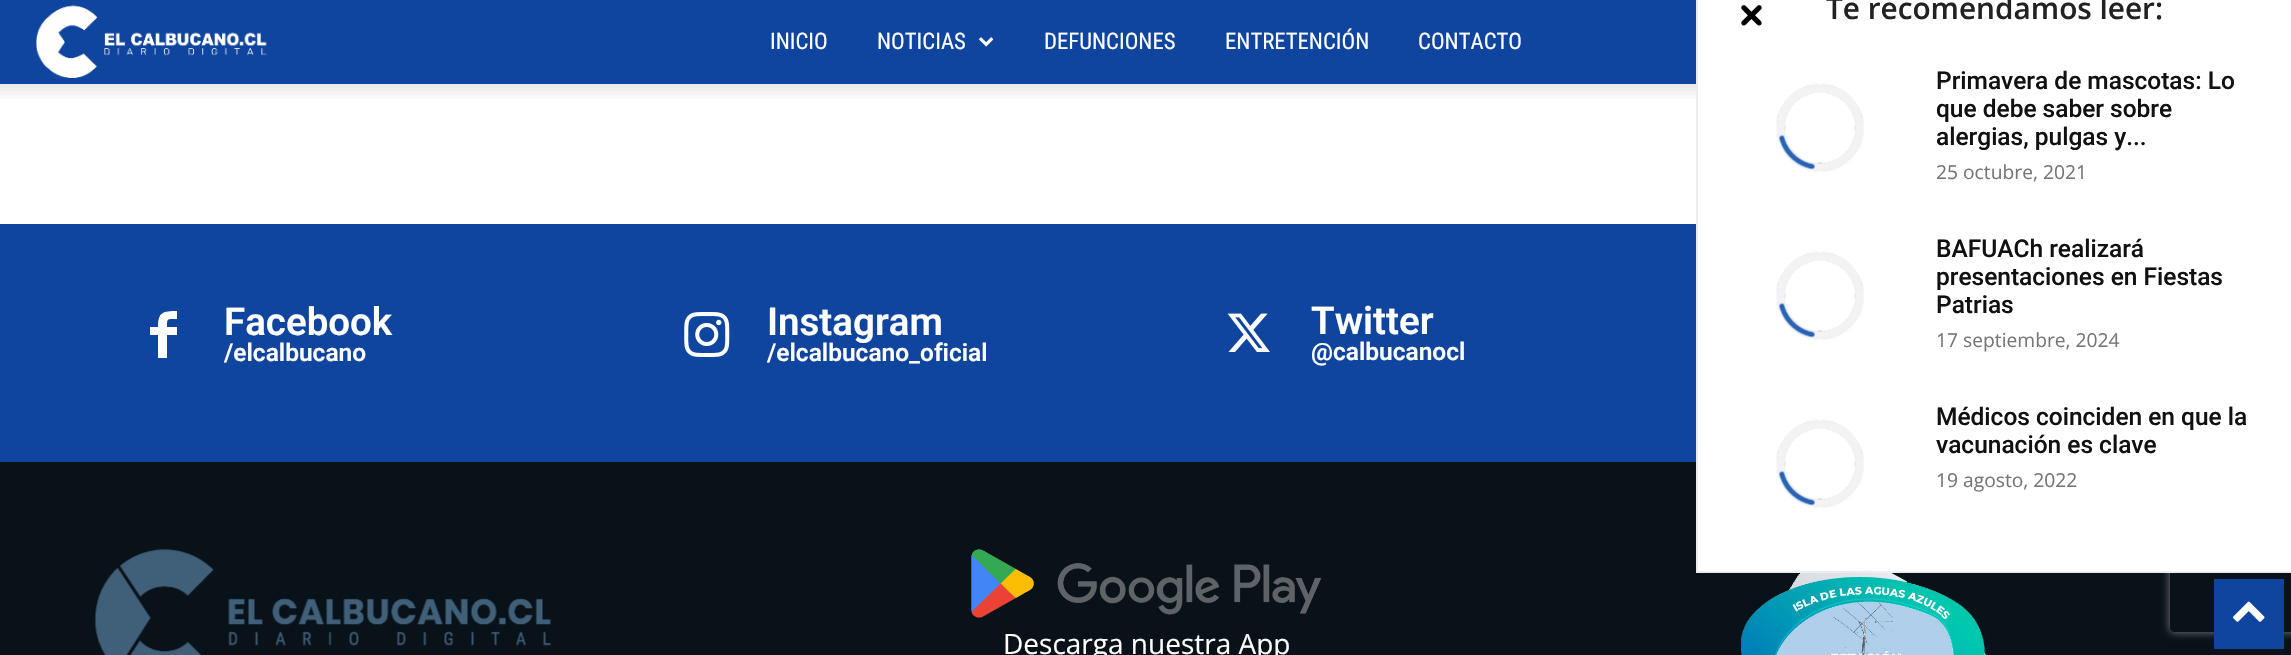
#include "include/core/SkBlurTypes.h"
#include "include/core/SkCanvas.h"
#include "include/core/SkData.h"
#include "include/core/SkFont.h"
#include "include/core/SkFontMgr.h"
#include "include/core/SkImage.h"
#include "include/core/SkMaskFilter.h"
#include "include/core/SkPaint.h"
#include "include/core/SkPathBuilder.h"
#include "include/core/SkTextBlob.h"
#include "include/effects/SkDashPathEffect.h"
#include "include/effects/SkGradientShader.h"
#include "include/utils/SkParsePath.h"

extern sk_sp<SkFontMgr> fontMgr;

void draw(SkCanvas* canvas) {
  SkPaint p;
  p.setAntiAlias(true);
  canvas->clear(SK_ColorWHITE);
  p.setColor(SkColorSetRGB(15, 69, 159));
  canvas->drawRect(SkRect::MakeLTRB(0, 0, 1696, 84), p);
  canvas->drawImageRect(SkImages::DeferredFromEncodedData(SkData::MakeFromFileName("images/1.png")), SkRect::MakeLTRB(36, 5, 267, 78), SkSamplingOptions());
  canvas->drawImageRect(SkImages::DeferredFromEncodedData(SkData::MakeFromFileName("images/2.png")), SkRect::MakeLTRB(979, 37, 994, 47), SkSamplingOptions());
  canvas->drawImageRect(SkImages::DeferredFromEncodedData(SkData::MakeFromFileName("images/3.png")), SkRect::MakeLTRB(0, 84, 1696, 99), SkSamplingOptions());
  canvas->drawRect(SkRect::MakeLTRB(0, 224, 1696, 462), p);
  p.setColor(SK_ColorWHITE);
  canvas->drawPath(SkPathBuilder().moveTo(177, 319).cubicTo(167, 319, 167, 318, 167, 327).lineTo(177, 327).lineTo(177, 335).lineTo(167, 335).lineTo(167, 358).lineTo(158, 358).lineTo(158, 335).lineTo(150, 335).lineTo(150, 327).lineTo(158, 327).cubicTo(158, 312, 163, 311, 177, 311).close().detach(), p);
  canvas->drawImageRect(SkImages::DeferredFromEncodedData(SkData::MakeFromFileName("images/4.png")), SkRect::MakeLTRB(684, 312, 730, 357), SkSamplingOptions());
  canvas->drawImageRect(SkImages::DeferredFromEncodedData(SkData::MakeFromFileName("images/5.png")), SkRect::MakeLTRB(1227, 313, 1270, 352), SkSamplingOptions());
  p.setColor(SkColorSetRGB(9, 18, 25));
  canvas->drawRect(SkRect::MakeLTRB(0, 462, 2291, 655), p);
  canvas->drawImageRect(SkImages::DeferredFromEncodedData(SkData::MakeFromFileName("images/6.png")), SkRect::MakeLTRB(95, 549, 551, 655), SkSamplingOptions());
  canvas->drawImageRect(SkImages::DeferredFromEncodedData(SkData::MakeFromFileName("images/7.png")), SkRect::MakeLTRB(971, 549, 1322, 618), SkSamplingOptions());
  canvas->drawImageRect(SkImages::DeferredFromEncodedData(SkData::MakeFromFileName("images/8.png")), SkRect::MakeLTRB(1740, 573, 1986, 655), SkSamplingOptions());
  canvas->save();
  canvas->clipPath(SkPathBuilder(SkPathFillType::kEvenOdd).moveTo(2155, 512).lineTo(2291, 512).lineTo(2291, 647).lineTo(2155, 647).close().moveTo(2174, 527).lineTo(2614, 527).cubicTo(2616, 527, 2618, 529, 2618, 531).lineTo(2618, 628).cubicTo(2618, 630, 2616, 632, 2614, 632).lineTo(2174, 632).cubicTo(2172, 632, 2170, 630, 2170, 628).lineTo(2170, 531).cubicTo(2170, 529, 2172, 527, 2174, 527).close().detach(), true);
  p.setColor(SkColorSetRGB(128, 128, 128));
  p.setMaskFilter(SkMaskFilter::MakeBlur(kNormal_SkBlurStyle, 4.5f));
  canvas->drawRoundRect(SkRect::MakeLTRB(2170, 527, 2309, 632), 4, 4, p);
  p.setMaskFilter(nullptr);
  canvas->restore();
  p.setColor(SK_ColorWHITE);
  canvas->drawRect(SkRect::MakeLTRB(1698, 462, 2291, 571), p);
  p.setColor(SkColorSetRGB(237, 237, 237));
  canvas->drawRect(SkRect::MakeLTRB(1696, 571, 2291, 573), p);
  canvas->drawRect(SkRect::MakeLTRB(1696, 0, 1698, 572), p);
  canvas->drawImageRect(SkImages::DeferredFromEncodedData(SkData::MakeFromFileName("images/9.png")), SkRect::MakeLTRB(1741, 5, 1762, 26), SkSamplingOptions());
  canvas->drawImageRect(SkImages::DeferredFromEncodedData(SkData::MakeFromFileName("images/10.png")), SkRect::MakeLTRB(1776, 83, 1864, 172), SkSamplingOptions());
  canvas->drawImageRect(SkImages::DeferredFromEncodedData(SkData::MakeFromFileName("images/10.png")), SkRect::MakeLTRB(1776, 251, 1864, 340), SkSamplingOptions());
  canvas->drawImageRect(SkImages::DeferredFromEncodedData(SkData::MakeFromFileName("images/10.png")), SkRect::MakeLTRB(1776, 419, 1864, 508), SkSamplingOptions());
  p.setColor(SkColorSetRGB(15, 69, 159));
  canvas->drawRect(SkRect::MakeLTRB(2214, 579, 2284, 649), p);
  canvas->drawImageRect(SkImages::DeferredFromEncodedData(SkData::MakeFromFileName("images/11.png")), SkRect::MakeLTRB(2233, 601, 2265, 622), SkSamplingOptions());
  SkFont font1(fontMgr->matchFamilyStyle("Roboto Condensed", SkFontStyle::Normal()), 22.75f);
  font1.setSubpixel(true);
  p.setColor(SK_ColorWHITE);
  canvas->drawString("INICIO", 770, 49, font1, p);
  canvas->drawString("NOTICIAS", 877, 49, font1, p);
  canvas->drawString("DEFUNCIONES", 1044, 49, font1, p);
  canvas->drawString("ENTRETENCIÓN", 1225, 49, font1, p);
  canvas->drawString("CONTACTO", 1418, 49, font1, p);
  SkFont font2(fontMgr->matchFamilyStyle("Roboto", SkFontStyle(600, SkFontStyle::kNormal_Width, SkFontStyle::kUpright_Slant)), 38.5f);
  font2.setSubpixel(true);
  canvas->drawString("Facebook", 224, 335, font2, p);
  SkFont font3(fontMgr->matchFamilyStyle("Roboto", SkFontStyle(600, SkFontStyle::kNormal_Width, SkFontStyle::kUpright_Slant)), 24.5f);
  font3.setSubpixel(true);
  canvas->drawString("/elcalbucano", 224, 361, font3, p);
  canvas->drawString("Instagram", 767, 335, font2, p);
  canvas->drawString("/elcalbucano_oficial", 767, 361, font3, p);
  canvas->drawString("Twitter", 1311, 334, font2, p);
  canvas->drawString("@calbucanocl", 1311, 360, font3, p);
  SkFont font4(fontMgr->matchFamilyStyle("Open Sans", SkFontStyle::Normal()), 28);
  font4.setSubpixel(true);
  canvas->drawString("Descarga nuestra App", 1003, 654, font4, p);
  SkFont font5(fontMgr->matchFamilyStyle("Open Sans", SkFontStyle(600, SkFontStyle::kNormal_Width, SkFontStyle::kUpright_Slant)), 29.75f);
  font5.setSubpixel(true);
  p.setColor(SkColorSetRGB(34, 34, 34));
  canvas->drawString("Te recomendamos leer:", 1826, 19, font5, p);
  SkFont font6(fontMgr->matchFamilyStyle("Roboto", SkFontStyle(500, SkFontStyle::kNormal_Width, SkFontStyle::kUpright_Slant)), 24.5f);
  font6.setSubpixel(true);
  p.setColor(SkColorSetRGB(17, 17, 17));
  canvas->drawString("Primavera de mascotas: Lo", 1936, 89, font6, p);
  canvas->drawString("que debe saber sobre", 1936, 117, font6, p);
  canvas->drawString("alergias, pulgas y...", 1936, 145, font6, p);
  SkFont font7(fontMgr->matchFamilyStyle("Open Sans", SkFontStyle::Normal()), 19.25f);
  font7.setSubpixel(true);
  p.setColor(SkColorSetRGB(118, 118, 118));
  canvas->drawString("25 octubre, 2021", 1936, 179, font7, p);
  p.setColor(SkColorSetRGB(17, 17, 17));
  canvas->drawString("BAFUACh realizará", 1936, 257, font6, p);
  canvas->drawString("presentaciones en Fiestas", 1936, 285, font6, p);
  canvas->drawString("Patrias", 1936, 313, font6, p);
  p.setColor(SkColorSetRGB(118, 118, 118));
  canvas->drawString("17 septiembre, 2024", 1936, 347, font7, p);
  p.setColor(SkColorSetRGB(17, 17, 17));
  canvas->drawString("Médicos coinciden en que la", 1936, 425, font6, p);
  canvas->drawString("vacunación es clave", 1936, 453, font6, p);
  p.setColor(SkColorSetRGB(118, 118, 118));
  canvas->drawString("19 agosto, 2022", 1936, 487, font7, p);
}
